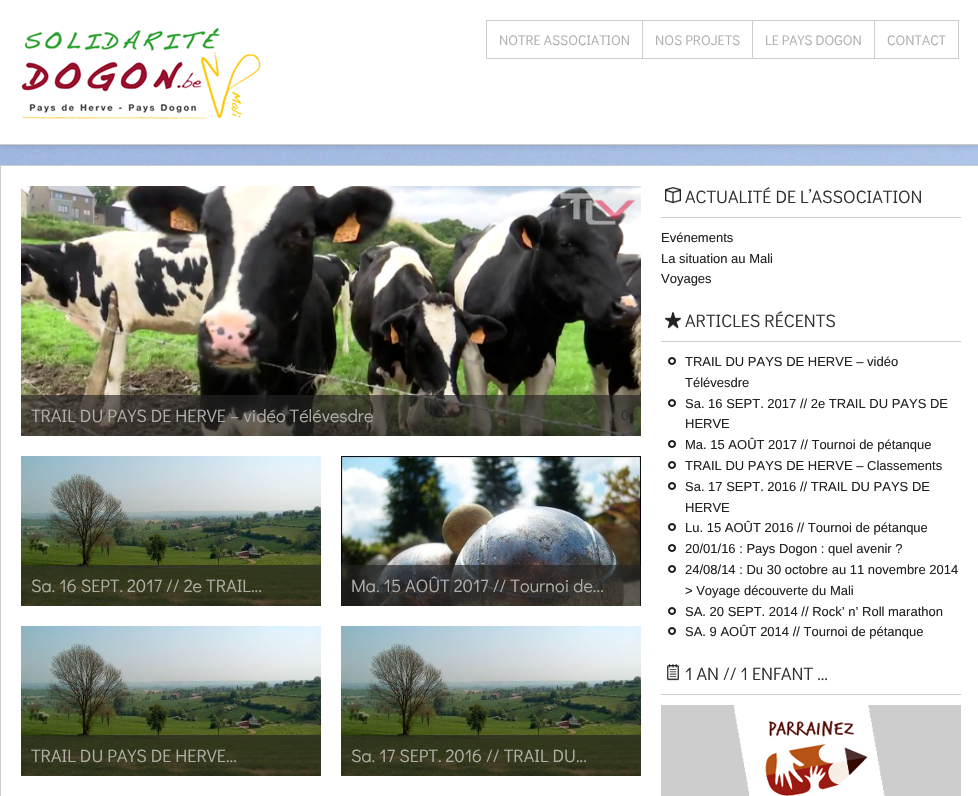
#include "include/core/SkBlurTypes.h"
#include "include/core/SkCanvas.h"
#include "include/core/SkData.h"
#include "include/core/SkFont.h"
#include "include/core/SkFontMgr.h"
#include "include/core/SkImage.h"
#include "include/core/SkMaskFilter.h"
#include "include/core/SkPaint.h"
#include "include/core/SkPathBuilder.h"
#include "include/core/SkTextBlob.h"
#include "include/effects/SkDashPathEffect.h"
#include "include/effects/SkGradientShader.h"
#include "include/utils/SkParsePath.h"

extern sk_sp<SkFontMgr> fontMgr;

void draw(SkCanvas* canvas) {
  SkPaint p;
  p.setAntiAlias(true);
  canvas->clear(SK_ColorWHITE);
  canvas->drawImageRect(SkImages::DeferredFromEncodedData(SkData::MakeFromFileName("images/1.png")), SkRect::MakeLTRB(0, 145, 978, 165), SkSamplingOptions());
  p.setColor(SkColorSetARGB(26, 0, 0, 0));
  p.setMaskFilter(SkMaskFilter::MakeBlur(kNormal_SkBlurStyle, 2.5f));
  canvas->drawRect(SkRect::MakeLTRB(0, 2, 978, 147), p);
  p.setMaskFilter(nullptr);
  p.setColor(SK_ColorWHITE);
  canvas->drawRect(SkRect::MakeLTRB(0, 0, 978, 144), p);
  p.setColor(SkColorSetRGB(204, 204, 204));
  canvas->drawRect(SkRect::MakeLTRB(0, 144, 978, 145), p);
  canvas->drawImageRect(SkImages::DeferredFromEncodedData(SkData::MakeFromFileName("images/2.png")), SkRect::MakeLTRB(21, 28, 261, 119), SkSamplingOptions());
  p.setStyle(SkPaint::kStroke_Style);
  p.setStrokeWidth(1);
  canvas->drawRect(SkRect::MakeLTRB(486.5f, 20.5f, 958.5f, 58.5f), p);
  p.setStyle(SkPaint::kFill_Style);
  canvas->drawRect(SkRect::MakeLTRB(642, 21, 643, 58), p);
  canvas->drawRect(SkRect::MakeLTRB(752, 21, 753, 58), p);
  canvas->drawRect(SkRect::MakeLTRB(874, 21, 875, 58), p);
  p.setStyle(SkPaint::kStroke_Style);
  canvas->drawRect(SkRect::MakeLTRB(0.5f, 165.5f, 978.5f, 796.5f), p);
  canvas->drawImageRect(SkImages::DeferredFromEncodedData(SkData::MakeFromFileName("images/3.png")), SkRect::MakeLTRB(21, 186, 641, 436), SkSamplingOptions());
  p.setStyle(SkPaint::kFill_Style);
  p.setColor(SkColorSetARGB(166, 34, 34, 34));
  canvas->drawRect(SkRect::MakeLTRB(21, 395, 641, 436), p);
  canvas->drawImageRect(SkImages::DeferredFromEncodedData(SkData::MakeFromFileName("images/4.png")), SkRect::MakeLTRB(21, 456, 321, 606), SkSamplingOptions());
  canvas->drawRect(SkRect::MakeLTRB(21, 565, 321, 606), p);
  canvas->drawImageRect(SkImages::DeferredFromEncodedData(SkData::MakeFromFileName("images/5.png")), SkRect::MakeLTRB(341, 456, 641, 606), SkSamplingOptions());
  canvas->drawRect(SkRect::MakeLTRB(341, 565, 641, 606), p);
  canvas->drawImageRect(SkImages::DeferredFromEncodedData(SkData::MakeFromFileName("images/4.png")), SkRect::MakeLTRB(21, 626, 321, 776), SkSamplingOptions());
  canvas->drawRect(SkRect::MakeLTRB(21, 735, 321, 776), p);
  canvas->drawImageRect(SkImages::DeferredFromEncodedData(SkData::MakeFromFileName("images/4.png")), SkRect::MakeLTRB(341, 626, 641, 776), SkSamplingOptions());
  canvas->drawRect(SkRect::MakeLTRB(341, 735, 641, 776), p);
  canvas->drawImageRect(SkImages::DeferredFromEncodedData(SkData::MakeFromFileName("images/6.png")), SkRect::MakeLTRB(665, 187, 681, 204), SkSamplingOptions());
  p.setColor(SkColorSetRGB(204, 204, 204));
  canvas->drawRect(SkRect::MakeLTRB(661, 217, 961, 218), p);
  canvas->drawImageRect(SkImages::DeferredFromEncodedData(SkData::MakeFromFileName("images/7.png")), SkRect::MakeLTRB(665, 312, 681, 329), SkSamplingOptions());
  canvas->drawRect(SkRect::MakeLTRB(661, 341, 961, 342), p);
  canvas->drawImageRect(SkImages::DeferredFromEncodedData(SkData::MakeFromFileName("images/8.png")), SkRect::MakeLTRB(668, 357, 676, 365), SkSamplingOptions());
  canvas->drawImageRect(SkImages::DeferredFromEncodedData(SkData::MakeFromFileName("images/8.png")), SkRect::MakeLTRB(668, 399, 676, 407), SkSamplingOptions());
  canvas->drawImageRect(SkImages::DeferredFromEncodedData(SkData::MakeFromFileName("images/8.png")), SkRect::MakeLTRB(668, 440, 676, 448), SkSamplingOptions());
  canvas->drawImageRect(SkImages::DeferredFromEncodedData(SkData::MakeFromFileName("images/8.png")), SkRect::MakeLTRB(668, 461, 676, 469), SkSamplingOptions());
  canvas->drawImageRect(SkImages::DeferredFromEncodedData(SkData::MakeFromFileName("images/8.png")), SkRect::MakeLTRB(668, 482, 676, 490), SkSamplingOptions());
  canvas->drawImageRect(SkImages::DeferredFromEncodedData(SkData::MakeFromFileName("images/8.png")), SkRect::MakeLTRB(668, 523, 676, 531), SkSamplingOptions());
  canvas->drawImageRect(SkImages::DeferredFromEncodedData(SkData::MakeFromFileName("images/8.png")), SkRect::MakeLTRB(668, 544, 676, 552), SkSamplingOptions());
  canvas->drawImageRect(SkImages::DeferredFromEncodedData(SkData::MakeFromFileName("images/8.png")), SkRect::MakeLTRB(668, 565, 676, 573), SkSamplingOptions());
  canvas->drawImageRect(SkImages::DeferredFromEncodedData(SkData::MakeFromFileName("images/8.png")), SkRect::MakeLTRB(668, 607, 676, 615), SkSamplingOptions());
  canvas->drawImageRect(SkImages::DeferredFromEncodedData(SkData::MakeFromFileName("images/8.png")), SkRect::MakeLTRB(668, 627, 676, 635), SkSamplingOptions());
  canvas->drawImageRect(SkImages::DeferredFromEncodedData(SkData::MakeFromFileName("images/9.png")), SkRect::MakeLTRB(667, 664, 679, 681), SkSamplingOptions());
  canvas->drawRect(SkRect::MakeLTRB(661, 694, 961, 695), p);
  canvas->drawImageRect(SkImages::DeferredFromEncodedData(SkData::MakeFromFileName("images/10.png")), SkRect::MakeLTRB(661, 705, 961, 796), SkSamplingOptions());
  SkFont font1(fontMgr->matchFamilyStyle("Didact Gothic", SkFontStyle::Normal()), 14);
  font1.setSubpixel(true);
  p.setColor(SkColorSetRGB(175, 174, 171));
  canvas->drawString("NOTRE ASSOCIATION", 499, 45, font1, p);
  canvas->drawString("NOS PROJETS", 655, 45, font1, p);
  canvas->drawString("LE PAYS DOGON", 765, 45, font1, p);
  canvas->drawString("CONTACT", 887, 45, font1, p);
  SkFont font2(fontMgr->matchFamilyStyle("Didact Gothic", SkFontStyle::Normal()), 18);
  font2.setSubpixel(true);
  canvas->drawString("TRAIL DU PAYS DE HERVE – vidéo Télévesdre", 31, 422, font2, p);
  SkFont font3(fontMgr->matchFamilyStyle("Liberation Sans", SkFontStyle::Normal()), 14);
  font3.setSubpixel(true);
  p.setColor(SkColorSetRGB(48, 46, 44));
  canvas->drawString("0", 621, 420, font3, p);
  p.setColor(SkColorSetRGB(174, 175, 165));
  canvas->drawString("Sa. 16 SEPT. 2017 // 2e TRAIL...", 31, 592, font2, p);
  p.setColor(SkColorSetRGB(175, 174, 171));
  canvas->drawString("Ma. 15 AOÛT 2017 // Tournoi de...", 351, 592, font2, p);
  p.setColor(SkColorSetRGB(174, 175, 165));
  canvas->drawString("TRAIL DU PAYS DE HERVE...", 31, 762, font2, p);
  canvas->drawString("Sa. 17 SEPT. 2016 // TRAIL DU...", 351, 762, font2, p);
  p.setColor(SkColorSetRGB(51, 51, 51));
  canvas->drawString("ACTUALITÉ DE L’ASSOCIATION", 685, 203, font2, p);
  SkFont font4(fontMgr->matchFamilyStyle("Liberation Sans", SkFontStyle::Normal()), 13);
  font4.setSubpixel(true);
  p.setColor(SkColorSetRGB(34, 34, 34));
  canvas->drawString("Evénements", 661, 242, font4, p);
  canvas->drawString("La situation au Mali", 661, 263, font4, p);
  canvas->drawString("Voyages", 661, 283, font4, p);
  p.setColor(SkColorSetRGB(51, 51, 51));
  canvas->drawString("ARTICLES RÉCENTS", 685, 327, font2, p);
  p.setColor(SkColorSetRGB(34, 34, 34));
  canvas->drawString("TRAIL DU PAYS DE HERVE – vidéo", 685, 366, font4, p);
  canvas->drawString("Télévesdre", 685, 387, font4, p);
  canvas->drawString("Sa. 16 SEPT. 2017 // 2e TRAIL DU PAYS DE", 685, 408, font4, p);
  canvas->drawString("HERVE", 685, 428, font4, p);
  canvas->drawString("Ma. 15 AOÛT 2017 // Tournoi de pétanque", 685, 449, font4, p);
  canvas->drawString("TRAIL DU PAYS DE HERVE – Classements", 685, 470, font4, p);
  canvas->drawString("Sa. 17 SEPT. 2016 // TRAIL DU PAYS DE", 685, 491, font4, p);
  canvas->drawString("HERVE", 685, 512, font4, p);
  canvas->drawString("Lu. 15 AOÛT 2016 // Tournoi de pétanque", 685, 532, font4, p);
  canvas->drawString("20/01/16 : Pays Dogon : quel avenir ?", 685, 553, font4, p);
  canvas->drawString("24/08/14 : Du 30 octobre au 11 novembre 2014", 685, 574, font4, p);
  canvas->drawString("> Voyage découverte du Mali", 685, 595, font4, p);
  canvas->drawString("SA. 20 SEPT. 2014 // Rock’ n’ Roll marathon", 685, 616, font4, p);
  canvas->drawString("SA. 9 AOÛT 2014 // Tournoi de pétanque", 685, 636, font4, p);
  p.setColor(SkColorSetRGB(51, 51, 51));
  canvas->drawString("1 AN // 1 ENFANT …", 685, 680, font2, p);
}
